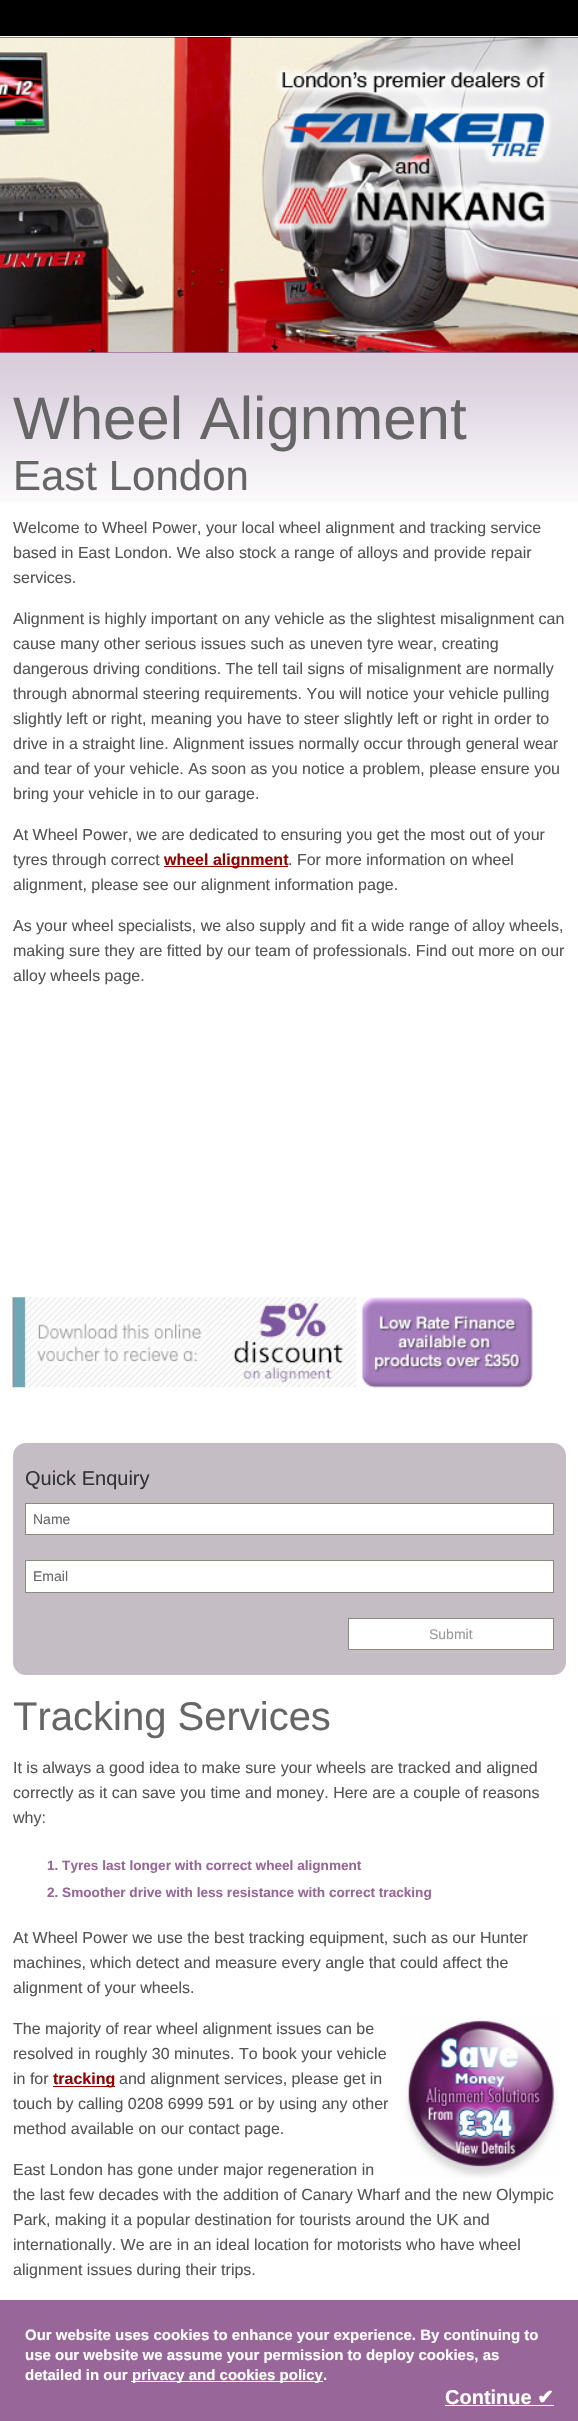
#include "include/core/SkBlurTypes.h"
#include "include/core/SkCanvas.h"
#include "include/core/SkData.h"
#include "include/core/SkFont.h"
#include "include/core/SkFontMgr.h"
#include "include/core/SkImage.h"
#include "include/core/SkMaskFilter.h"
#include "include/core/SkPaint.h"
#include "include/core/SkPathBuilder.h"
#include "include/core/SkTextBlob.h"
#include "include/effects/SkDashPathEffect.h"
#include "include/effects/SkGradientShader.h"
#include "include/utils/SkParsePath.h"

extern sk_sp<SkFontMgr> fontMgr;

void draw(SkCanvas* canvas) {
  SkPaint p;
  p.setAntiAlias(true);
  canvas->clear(SK_ColorWHITE);
  p.setColor(SK_ColorBLACK);
  canvas->drawRect(SkRect::MakeLTRB(0, 0, 578, 38), p);
  p.setColor(SK_ColorWHITE);
  canvas->drawRect(SkRect::MakeLTRB(0, 36, 578, 37), p);
  p.setColor(SkColorSetRGB(153, 102, 153));
  canvas->drawRect(SkRect::MakeLTRB(0, 352, 578, 353), p);
  canvas->drawImageRect(SkImages::DeferredFromEncodedData(SkData::MakeFromFileName("images/1.png")), SkRect::MakeLTRB(0, 37, 578, 353), SkSamplingOptions());
  canvas->drawImageRect(SkImages::DeferredFromEncodedData(SkData::MakeFromFileName("images/2.png")), SkRect::MakeLTRB(271, 64, 553, 233), SkSamplingOptions());
  canvas->drawImageRect(SkImages::DeferredFromEncodedData(SkData::MakeFromFileName("images/3.png")), SkRect::MakeLTRB(0, 353, 578, 502), SkSamplingOptions());
  p.setColor(SkColorSetRGB(153, 0, 0));
  canvas->drawRect(SkRect::MakeLTRB(164, 866, 288, 867), p);
  canvas->drawImageRect(SkImages::DeferredFromEncodedData(SkData::MakeFromFileName("images/4.png")), SkRect::MakeLTRB(12, 1297, 357, 1388), SkSamplingOptions());
  canvas->drawImageRect(SkImages::DeferredFromEncodedData(SkData::MakeFromFileName("images/5.png")), SkRect::MakeLTRB(361, 1297, 533, 1388), SkSamplingOptions());
  p.setColor(SkColorSetRGB(197, 189, 196));
  canvas->drawRoundRect(SkRect::MakeLTRB(13, 1443, 566, 1675), 13, 13, p);
  p.setColor(SK_ColorWHITE);
  canvas->drawRect(SkRect::MakeLTRB(25.5f, 1503.5f, 553.5f, 1534.5f), p);
  p.setStyle(SkPaint::kStroke_Style);
  p.setStrokeWidth(1);
  p.setColor(SkColorSetRGB(143, 137, 124));
  canvas->drawRect(SkRect::MakeLTRB(25.5f, 1503.5f, 553.5f, 1534.5f), p);
  p.setStyle(SkPaint::kFill_Style);
  p.setColor(SK_ColorWHITE);
  canvas->drawRect(SkRect::MakeLTRB(25.5f, 1560.5f, 553.5f, 1592.5f), p);
  p.setStyle(SkPaint::kStroke_Style);
  p.setColor(SkColorSetRGB(143, 137, 124));
  canvas->drawRect(SkRect::MakeLTRB(25.5f, 1560.5f, 553.5f, 1592.5f), p);
  p.setStyle(SkPaint::kFill_Style);
  p.setColor(SK_ColorWHITE);
  canvas->drawRect(SkRect::MakeLTRB(348.5f, 1618.5f, 553.5f, 1649.5f), p);
  p.setStyle(SkPaint::kStroke_Style);
  p.setColor(SkColorSetRGB(143, 137, 124));
  canvas->drawRect(SkRect::MakeLTRB(348.5f, 1618.5f, 553.5f, 1649.5f), p);
  canvas->drawImageRect(SkImages::DeferredFromEncodedData(SkData::MakeFromFileName("images/6.png")), SkRect::MakeLTRB(400, 2017, 560, 2178), SkSamplingOptions());
  p.setStyle(SkPaint::kFill_Style);
  p.setColor(SkColorSetRGB(153, 0, 0));
  canvas->drawRect(SkRect::MakeLTRB(53, 2086, 115, 2087), p);
  p.setColor(SkColorSetRGB(153, 102, 153));
  canvas->drawRect(SkRect::MakeLTRB(0, 2300, 578, 2421), p);
  p.setColor(SK_ColorWHITE);
  canvas->drawRect(SkRect::MakeLTRB(131, 2381, 323, 2382), p);
  canvas->drawRect(SkRect::MakeLTRB(445, 2405, 554, 2406), p);
  SkFont font1(fontMgr->matchFamilyStyle("Liberation Sans", SkFontStyle::Normal()), 60);
  font1.setSubpixel(true);
  p.setColor(SkColorSetRGB(102, 102, 102));
  canvas->drawString("Wheel Alignment", 13, 439, font1, p);
  SkFont font2(fontMgr->matchFamilyStyle("Liberation Sans", SkFontStyle::Normal()), 42);
  font2.setSubpixel(true);
  canvas->drawString("East London", 13, 490, font2, p);
  SkFont font3(fontMgr->matchFamilyStyle("Liberation Sans", SkFontStyle::Normal()), 16);
  font3.setSubpixel(true);
  p.setColor(SkColorSetRGB(84, 84, 84));
  canvas->drawString("Welcome to Wheel Power, your local wheel alignment and tracking service", 13, 533, font3, p);
  canvas->drawString("based in East London. We also stock a range of alloys and provide repair", 13, 558, font3, p);
  canvas->drawString("services.", 13, 583, font3, p);
  canvas->drawString("Alignment is highly important on any vehicle as the slightest misalignment can", 13, 624, font3, p);
  canvas->drawString("cause many other serious issues such as uneven tyre wear, creating", 13, 649, font3, p);
  canvas->drawString("dangerous driving conditions. The tell tail signs of misalignment are normally", 13, 674, font3, p);
  canvas->drawString("through abnormal steering requirements. You will notice your vehicle pulling", 13, 699, font3, p);
  canvas->drawString("slightly left or right, meaning you have to steer slightly left or right in order to", 13, 724, font3, p);
  canvas->drawString("drive in a straight line. Alignment issues normally occur through general wear", 13, 749, font3, p);
  canvas->drawString("and tear of your vehicle. As soon as you notice a problem, please ensure you", 13, 774, font3, p);
  canvas->drawString("bring your vehicle in to our garage.", 13, 799, font3, p);
  canvas->drawString("At Wheel Power, we are dedicated to ensuring you get the most out of your", 13, 840, font3, p);
  canvas->drawString("tyres through correct", 13, 865, font3, p);
  SkFont font4(fontMgr->matchFamilyStyle("Liberation Sans", SkFontStyle::Bold()), 16);
  font4.setSubpixel(true);
  p.setColor(SkColorSetRGB(153, 0, 0));
  canvas->drawString("wheel alignment", 164, 865, font4, p);
  p.setColor(SkColorSetRGB(84, 84, 84));
  canvas->drawString(". For more information on wheel", 288, 865, font3, p);
  canvas->drawString("alignment, please see our alignment information page.", 13, 890, font3, p);
  canvas->drawString("As your wheel specialists, we also supply and fit a wide range of alloy wheels,", 13, 931, font3, p);
  canvas->drawString("making sure they are fitted by our team of professionals. Find out more on our", 13, 956, font3, p);
  canvas->drawString("alloy wheels page.", 13, 981, font3, p);
  SkFont font5(fontMgr->matchFamilyStyle("Liberation Sans", SkFontStyle::Normal()), 20);
  font5.setSubpixel(true);
  p.setColor(SkColorSetRGB(51, 51, 51));
  canvas->drawString("Quick Enquiry", 25, 1485, font5, p);
  SkFont font6(fontMgr->matchFamilyStyle("Liberation Sans", SkFontStyle::Normal()), 14);
  font6.setSubpixel(true);
  p.setColor(SkColorSetRGB(102, 102, 102));
  canvas->drawString("Name", 33, 1524, font6, p);
  canvas->drawString("Email", 33, 1581, font6, p);
  p.setColor(SkColorSetRGB(153, 153, 153));
  canvas->drawString("Submit", 429, 1639, font6, p);
  SkFont font7(fontMgr->matchFamilyStyle("Liberation Sans", SkFontStyle::Normal()), 40);
  font7.setSubpixel(true);
  p.setColor(SkColorSetRGB(102, 102, 102));
  canvas->drawString("Tracking Services", 13, 1730, font7, p);
  p.setColor(SkColorSetRGB(84, 84, 84));
  canvas->drawString("It is always a good idea to make sure your wheels are tracked and aligned", 13, 1773, font3, p);
  canvas->drawString("correctly as it can save you time and money. Here are a couple of reasons", 13, 1798, font3, p);
  canvas->drawString("why:", 13, 1823, font3, p);
  SkFont font8(fontMgr->matchFamilyStyle("Liberation Sans", SkFontStyle::Bold()), 13.6f);
  font8.setSubpixel(true);
  p.setColor(SkColorSetRGB(153, 102, 153));
  canvas->drawString("1. Tyres last longer with correct wheel alignment", 47, 1870, font8, p);
  canvas->drawString("2. Smoother drive with less resistance with correct tracking", 47, 1897, font8, p);
  p.setColor(SkColorSetRGB(84, 84, 84));
  canvas->drawString("At Wheel Power we use the best tracking equipment, such as our Hunter", 13, 1943, font3, p);
  canvas->drawString("machines, which detect and measure every angle that could affect the", 13, 1968, font3, p);
  canvas->drawString("alignment of your wheels.", 13, 1993, font3, p);
  canvas->drawString("The majority of rear wheel alignment issues can be", 13, 2034, font3, p);
  canvas->drawString("resolved in roughly 30 minutes. To book your vehicle", 13, 2059, font3, p);
  canvas->drawString("in for", 13, 2084, font3, p);
  p.setColor(SkColorSetRGB(153, 0, 0));
  canvas->drawString("tracking", 53, 2084, font4, p);
  p.setColor(SkColorSetRGB(84, 84, 84));
  canvas->drawString("and alignment services, please get in", 119, 2084, font3, p);
  canvas->drawString("touch by calling 0208 6999 591 or by using any other", 13, 2109, font3, p);
  canvas->drawString("method available on our contact page.", 13, 2134, font3, p);
  canvas->drawString("East London has gone under major regeneration in", 13, 2175, font3, p);
  canvas->drawString("the last few decades with the addition of Canary Wharf and the new Olympic", 13, 2200, font3, p);
  canvas->drawString("Park, making it a popular destination for tourists around the UK and", 13, 2225, font3, p);
  canvas->drawString("internationally. We are in an ideal location for motorists who have wheel", 13, 2250, font3, p);
  canvas->drawString("alignment issues during their trips.", 13, 2275, font3, p);
  SkFont font9(fontMgr->matchFamilyStyle("Liberation Sans", SkFontStyle::Bold()), 15);
  font9.setSubpixel(true);
  p.setColor(SK_ColorWHITE);
  canvas->drawString("Our website uses cookies to enhance your experience. By continuing to", 25, 2340, font9, p);
  canvas->drawString("use our website we assume your permission to deploy cookies, as", 25, 2360, font9, p);
  canvas->drawString("detailed in our", 25, 2380, font9, p);
  canvas->drawString("privacy and cookies policy.", 132, 2380, font9, p);
  SkFont font10(fontMgr->matchFamilyStyle("Liberation Sans", SkFontStyle::Bold()), 20);
  font10.setSubpixel(true);
  canvas->drawString("Continue", 445, 2404, font10, p);
  SkFont font11(fontMgr->matchFamilyStyle("DejaVu Sans", SkFontStyle::Bold()), 20);
  font11.setSubpixel(true);
  canvas->drawString("✔", 537, 2404, font11, p);
}
